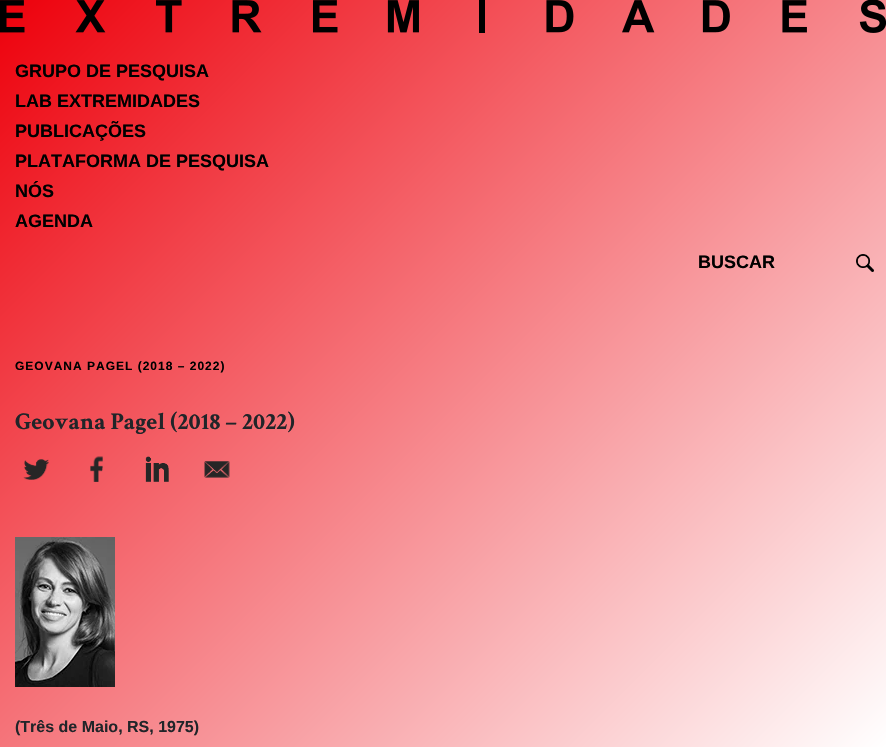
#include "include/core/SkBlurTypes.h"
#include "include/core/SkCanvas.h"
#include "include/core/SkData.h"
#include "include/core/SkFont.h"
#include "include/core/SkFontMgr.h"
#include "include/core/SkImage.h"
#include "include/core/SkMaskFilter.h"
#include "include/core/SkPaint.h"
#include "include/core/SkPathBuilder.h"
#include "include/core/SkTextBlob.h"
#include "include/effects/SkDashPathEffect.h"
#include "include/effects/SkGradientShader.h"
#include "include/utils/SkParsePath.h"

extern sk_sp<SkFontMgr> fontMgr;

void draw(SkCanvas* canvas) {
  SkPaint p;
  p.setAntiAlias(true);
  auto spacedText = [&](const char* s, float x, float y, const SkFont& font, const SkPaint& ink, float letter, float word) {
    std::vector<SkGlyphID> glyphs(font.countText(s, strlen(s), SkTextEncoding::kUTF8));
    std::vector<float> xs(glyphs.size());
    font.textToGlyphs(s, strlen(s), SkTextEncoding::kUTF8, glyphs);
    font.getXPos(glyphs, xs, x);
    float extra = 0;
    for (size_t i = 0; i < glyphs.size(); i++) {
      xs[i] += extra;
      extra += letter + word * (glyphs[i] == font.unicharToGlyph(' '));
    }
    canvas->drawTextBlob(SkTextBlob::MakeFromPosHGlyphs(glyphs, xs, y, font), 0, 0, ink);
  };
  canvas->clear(SK_ColorWHITE);
  {
    const SkColor colors[] = {SkColorSetRGB(237, 0, 11), SK_ColorWHITE};
    const float stops[] = {0, 1};
    const SkPoint ends[] = {{35, -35}, {851, 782}};
    p.setShader(SkGradientShader::MakeLinear(ends, colors, stops, 2, SkTileMode::kClamp));
    p.setAlpha(255);
  }
  canvas->drawRect(SkRect::MakeLTRB(0, 0, 886, 747), p);
  canvas->drawImageRect(SkImages::DeferredFromEncodedData(SkData::MakeFromFileName("images/1.png")), SkRect::MakeLTRB(0, 0, 886, 33), SkSamplingOptions());
  canvas->drawImageRect(SkImages::DeferredFromEncodedData(SkData::MakeFromFileName("images/2.png")), SkRect::MakeLTRB(856, 254, 874, 272), SkSamplingOptions());
  canvas->drawImageRect(SkImages::DeferredFromEncodedData(SkData::MakeFromFileName("images/3.png")), SkRect::MakeLTRB(23, 459, 49, 480), SkSamplingOptions());
  canvas->drawImageRect(SkImages::DeferredFromEncodedData(SkData::MakeFromFileName("images/4.png")), SkRect::MakeLTRB(90, 456, 103, 482), SkSamplingOptions());
  canvas->drawImageRect(SkImages::DeferredFromEncodedData(SkData::MakeFromFileName("images/5.png")), SkRect::MakeLTRB(145, 456, 169, 482), SkSamplingOptions());
  canvas->drawImageRect(SkImages::DeferredFromEncodedData(SkData::MakeFromFileName("images/6.png")), SkRect::MakeLTRB(204, 461, 230, 478), SkSamplingOptions());
  canvas->drawImageRect(SkImages::DeferredFromEncodedData(SkData::MakeFromFileName("images/7.png")), SkRect::MakeLTRB(15, 537, 115, 687), SkSamplingOptions());
  SkFont font1(fontMgr->matchFamilyStyle("Liberation Sans", SkFontStyle::Bold()), 18);
  font1.setSubpixel(true);
  p.setShader(nullptr);
  p.setColor(SK_ColorBLACK);
  canvas->drawString("GRUPO DE PESQUISA", 15, 77, font1, p);
  canvas->drawString("LAB EXTREMIDADES", 15, 107, font1, p);
  canvas->drawString("PUBLICAÇÕES", 15, 137, font1, p);
  canvas->drawString("PLATAFORMA DE PESQUISA", 15, 167, font1, p);
  canvas->drawString("NÓS", 15, 197, font1, p);
  canvas->drawString("AGENDA", 15, 227, font1, p);
  canvas->drawString("BUSCAR", 698, 268, font1, p);
  SkFont font2(fontMgr->matchFamilyStyle("Liberation Sans", SkFontStyle::Bold()), 12);
  font2.setSubpixel(true);
  spacedText("GEOVANA PAGEL (2018 – 2022)", 15, 370, font2, p, 1, 0);
  SkFont font3(fontMgr->matchFamilyStyle("Crimson Text", SkFontStyle::Bold()), 24);
  font3.setSubpixel(true);
  p.setColor(SkColorSetRGB(33, 37, 41));
  canvas->drawString("Geovana Pagel (2018 – 2022)", 15, 429, font3, p);
  SkFont font4(fontMgr->matchFamilyStyle("Liberation Sans", SkFontStyle::Bold()), 16);
  font4.setSubpixel(true);
  canvas->drawString("(Três de Maio, RS, 1975)", 15, 732, font4, p);
}
